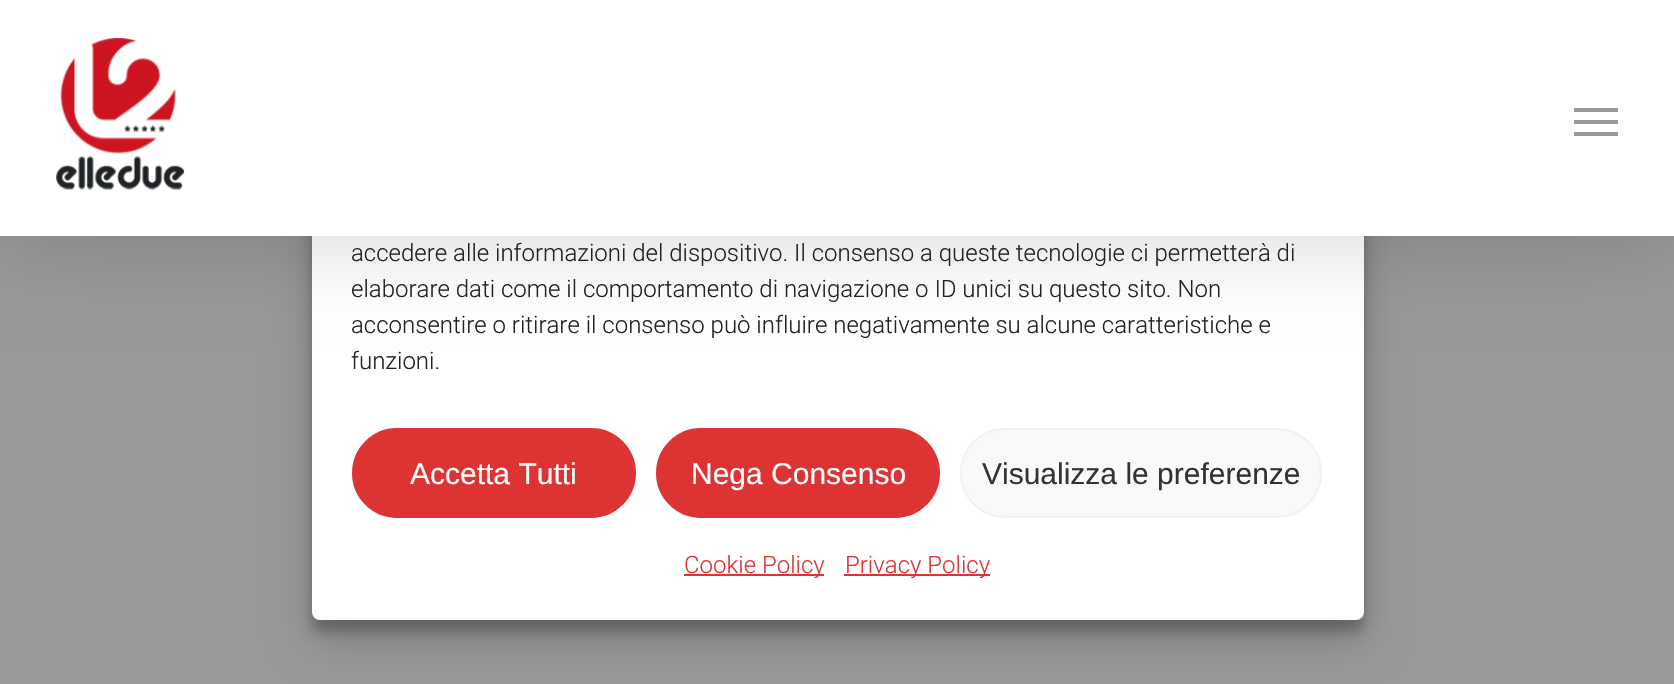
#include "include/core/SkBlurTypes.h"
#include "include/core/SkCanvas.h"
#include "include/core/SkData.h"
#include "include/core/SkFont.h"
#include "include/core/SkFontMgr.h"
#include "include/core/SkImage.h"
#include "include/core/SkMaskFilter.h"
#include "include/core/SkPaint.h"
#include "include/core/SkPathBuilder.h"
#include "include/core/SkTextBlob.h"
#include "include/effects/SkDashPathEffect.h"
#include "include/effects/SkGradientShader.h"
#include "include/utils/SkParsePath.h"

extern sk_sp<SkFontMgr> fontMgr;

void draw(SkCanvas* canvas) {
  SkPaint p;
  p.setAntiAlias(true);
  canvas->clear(SkColorSetRGB(153, 153, 153));
  p.setColor(SkColorSetARGB(59, 0, 0, 0));
  p.setMaskFilter(SkMaskFilter::MakeBlur(kNormal_SkBlurStyle, 6));
  canvas->drawRoundRect(SkRect::MakeLTRB(312, 74, 1364, 632), 8, 8, p);
  p.setMaskFilter(nullptr);
  p.setColor(SkColorSetARGB(48, 0, 0, 0));
  p.setMaskFilter(SkMaskFilter::MakeBlur(kNormal_SkBlurStyle, 20));
  canvas->drawRoundRect(SkRect::MakeLTRB(312, 82, 1364, 640), 8, 8, p);
  p.setMaskFilter(nullptr);
  p.setColor(SK_ColorWHITE);
  canvas->drawRoundRect(SkRect::MakeLTRB(312, 62, 1364, 620), 8, 8, p);
  p.setColor(SkColorSetARGB(38, 0, 0, 0));
  p.setMaskFilter(SkMaskFilter::MakeBlur(kNormal_SkBlurStyle, 45));
  canvas->drawRect(SkRect::MakeLTRB(0, 6, 1674, 242), p);
  p.setMaskFilter(nullptr);
  p.setColor(SK_ColorWHITE);
  canvas->drawRect(SkRect::MakeLTRB(0, 0, 1674, 236), p);
  canvas->drawImageRect(SkImages::DeferredFromEncodedData(SkData::MakeFromFileName("images/1.png")), SkRect::MakeLTRB(56, 38, 185, 190), SkSamplingOptions());
  p.setColor(SkColorSetRGB(153, 153, 153));
  canvas->drawRect(SkRect::MakeLTRB(1574, 108, 1618, 112), p);
  canvas->drawRect(SkRect::MakeLTRB(1574, 132, 1618, 136), p);
  canvas->drawRect(SkRect::MakeLTRB(1574, 120, 1618, 124), p);
  p.setColor(SkColorSetRGB(221, 51, 51));
  canvas->drawRoundRect(SkRect::MakeLTRB(353, 429, 635, 517), 44, 44, p);
  p.setStyle(SkPaint::kStroke_Style);
  p.setStrokeWidth(2);
  canvas->drawRoundRect(SkRect::MakeLTRB(353, 429, 635, 517), 44, 44, p);
  p.setStyle(SkPaint::kFill_Style);
  canvas->drawRoundRect(SkRect::MakeLTRB(657, 429, 939, 517), 44, 44, p);
  p.setStyle(SkPaint::kStroke_Style);
  canvas->drawRoundRect(SkRect::MakeLTRB(657, 429, 939, 517), 44, 44, p);
  p.setStyle(SkPaint::kFill_Style);
  p.setColor(SkColorSetRGB(249, 249, 249));
  canvas->drawRoundRect(SkRect::MakeLTRB(961, 429, 1321, 517), 44, 44, p);
  p.setStyle(SkPaint::kStroke_Style);
  p.setColor(SkColorSetRGB(242, 242, 242));
  canvas->drawRoundRect(SkRect::MakeLTRB(961, 429, 1321, 517), 44, 44, p);
  p.setStyle(SkPaint::kFill_Style);
  p.setColor(SkColorSetRGB(221, 51, 51));
  canvas->drawRect(SkRect::MakeLTRB(684, 574, 824, 576), p);
  canvas->drawRect(SkRect::MakeLTRB(844, 574, 990, 576), p);
  SkFont font1(fontMgr->matchFamilyStyle("Roboto", SkFontStyle(300, SkFontStyle::kNormal_Width, SkFontStyle::kUpright_Slant)), 24);
  font1.setSubpixel(true);
  p.setColor(SkColorSetRGB(34, 34, 34));
  canvas->drawString("accedere alle informazioni del dispositivo. Il consenso a queste tecnologie ci permetterà di", 351, 261, font1, p);
  canvas->drawString("elaborare dati come il comportamento di navigazione o ID unici su questo sito. Non", 351, 297, font1, p);
  canvas->drawString("acconsentire o ritirare il consenso può influire negativamente su alcune caratteristiche e", 351, 333, font1, p);
  canvas->drawString("funzioni.", 351, 369, font1, p);
  SkFont font2(fontMgr->matchFamilyStyle("Liberation Sans", SkFontStyle::Normal()), 30);
  font2.setSubpixel(true);
  p.setColor(SK_ColorWHITE);
  canvas->drawString("Accetta Tutti", 410, 484, font2, p);
  canvas->drawString("Nega Consenso", 691, 484, font2, p);
  p.setColor(SkColorSetRGB(51, 51, 51));
  canvas->drawString("Visualizza le preferenze", 982, 484, font2, p);
  p.setColor(SkColorSetRGB(221, 51, 51));
  canvas->drawString("Cookie Policy", 684, 573, font1, p);
  canvas->drawString("Privacy Policy", 845, 573, font1, p);
}
